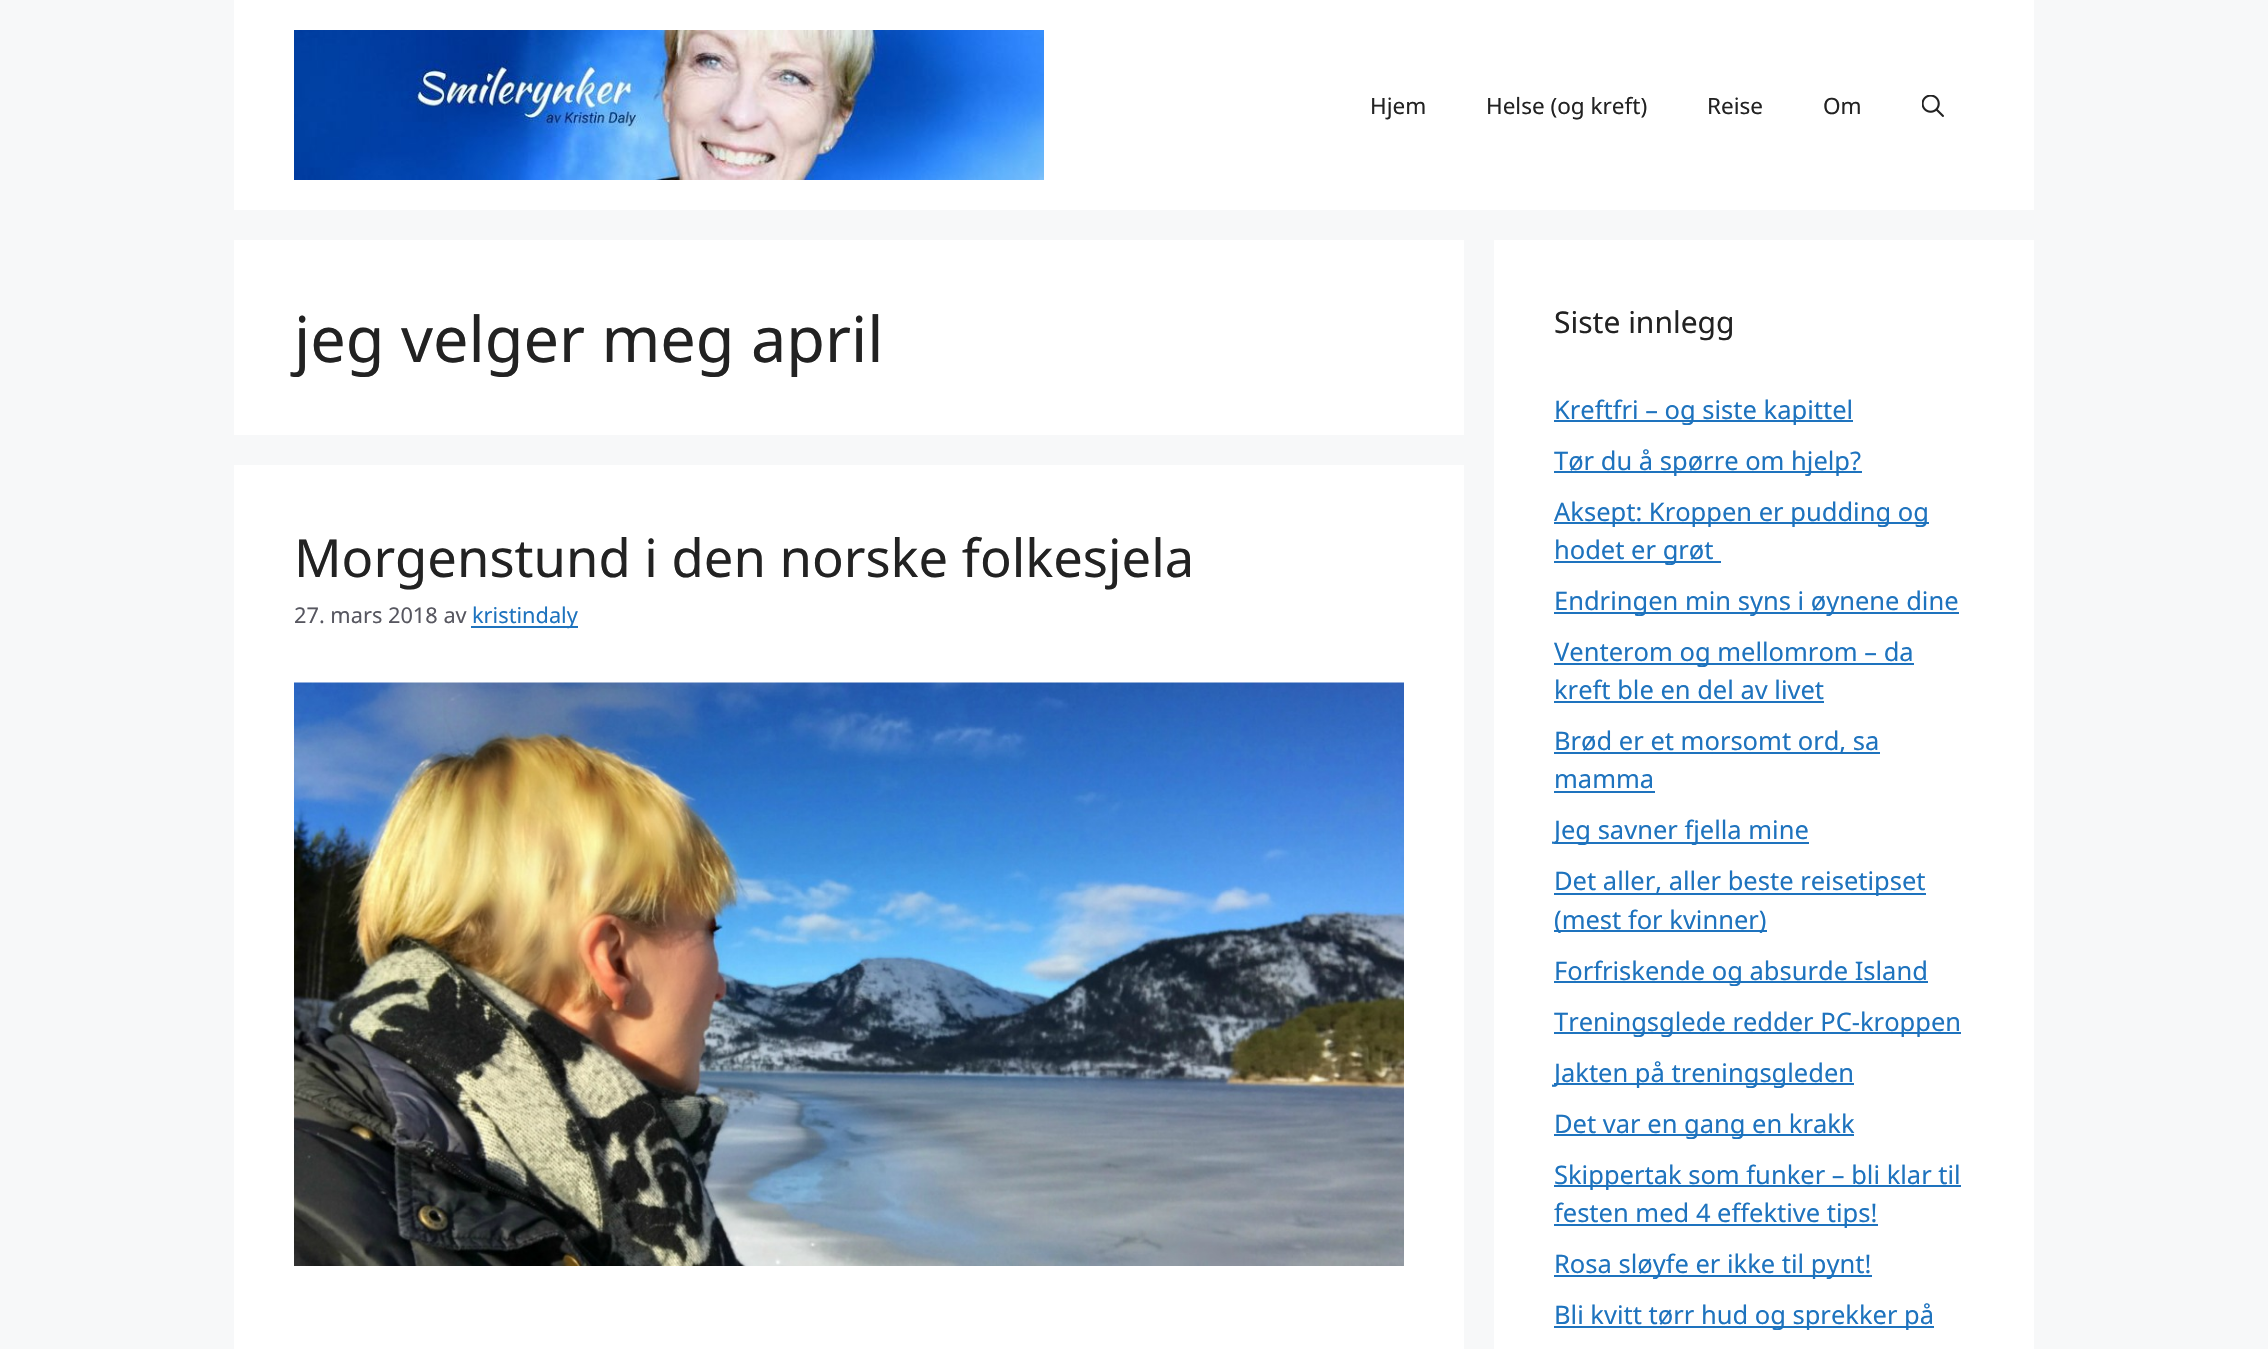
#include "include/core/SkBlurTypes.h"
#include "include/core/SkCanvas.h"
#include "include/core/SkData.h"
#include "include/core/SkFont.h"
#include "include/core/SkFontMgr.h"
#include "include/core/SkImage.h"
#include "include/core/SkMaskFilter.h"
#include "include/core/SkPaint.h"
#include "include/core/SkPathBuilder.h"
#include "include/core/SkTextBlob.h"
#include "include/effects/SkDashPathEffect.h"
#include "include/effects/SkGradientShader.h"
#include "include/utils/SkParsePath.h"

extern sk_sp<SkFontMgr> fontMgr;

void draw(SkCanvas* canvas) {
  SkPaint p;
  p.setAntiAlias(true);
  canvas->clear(SkColorSetRGB(247, 248, 249));
  p.setColor(SK_ColorWHITE);
  canvas->drawRect(SkRect::MakeLTRB(234, 0, 2034, 210), p);
  canvas->drawImageRect(SkImages::DeferredFromEncodedData(SkData::MakeFromFileName("images/1.png")), SkRect::MakeLTRB(294, 30, 1044, 180), SkSamplingOptions());
  canvas->drawImageRect(SkImages::DeferredFromEncodedData(SkData::MakeFromFileName("images/2.png")), SkRect::MakeLTRB(1922, 95, 1944, 117), SkSamplingOptions());
  canvas->drawRect(SkRect::MakeLTRB(234, 240, 1464, 435), p);
  canvas->drawRect(SkRect::MakeLTRB(234, 465, 1464, 1349), p);
  p.setColor(SkColorSetRGB(30, 115, 190));
  canvas->drawRect(SkRect::MakeLTRB(471, 626, 578, 628), p);
  canvas->drawImageRect(SkImages::DeferredFromEncodedData(SkData::MakeFromFileName("images/3.png")), SkRect::MakeLTRB(294, 682, 1404, 1266), SkSamplingOptions());
  p.setColor(SK_ColorWHITE);
  canvas->drawRect(SkRect::MakeLTRB(1494, 240, 2034, 1349), p);
  p.setColor(SkColorSetRGB(30, 115, 190));
  canvas->drawRect(SkRect::MakeLTRB(1554, 420, 1853, 422), p);
  canvas->drawRect(SkRect::MakeLTRB(1554, 471, 1862, 473), p);
  canvas->drawRect(SkRect::MakeLTRB(1554, 522, 1929, 524), p);
  canvas->drawRect(SkRect::MakeLTRB(1554, 561, 1721, 563), p);
  canvas->drawRect(SkRect::MakeLTRB(1554, 612, 1959, 614), p);
  canvas->drawRect(SkRect::MakeLTRB(1554, 663, 1914, 665), p);
  canvas->drawRect(SkRect::MakeLTRB(1554, 701, 1824, 703), p);
  canvas->drawRect(SkRect::MakeLTRB(1554, 752, 1880, 754), p);
  canvas->drawRect(SkRect::MakeLTRB(1554, 791, 1655, 793), p);
  canvas->drawRect(SkRect::MakeLTRB(1554, 842, 1809, 844), p);
  canvas->drawRect(SkRect::MakeLTRB(1554, 893, 1926, 895), p);
  canvas->drawRect(SkRect::MakeLTRB(1554, 930, 1767, 932), p);
  canvas->drawRect(SkRect::MakeLTRB(1554, 981, 1928, 983), p);
  canvas->drawRect(SkRect::MakeLTRB(1554, 1032, 1961, 1034), p);
  canvas->drawRect(SkRect::MakeLTRB(1554, 1083, 1854, 1085), p);
  canvas->drawRect(SkRect::MakeLTRB(1554, 1134, 1854, 1136), p);
  canvas->drawRect(SkRect::MakeLTRB(1554, 1185, 1961, 1187), p);
  canvas->drawRect(SkRect::MakeLTRB(1554, 1224, 1878, 1226), p);
  canvas->drawRect(SkRect::MakeLTRB(1554, 1275, 1872, 1277), p);
  canvas->drawRect(SkRect::MakeLTRB(1554, 1326, 1934, 1328), p);
  SkFont font1(fontMgr->matchFamilyStyle("Noto Sans", SkFontStyle::Normal()), 22.5f);
  font1.setSubpixel(true);
  p.setColor(SkColorSetRGB(34, 34, 34));
  canvas->drawString("Hjem", 1370, 114, font1, p);
  canvas->drawString("Helse (og kreft)", 1486, 114, font1, p);
  canvas->drawString("Reise", 1707, 114, font1, p);
  canvas->drawString("Om", 1823, 114, font1, p);
  SkFont font2(fontMgr->matchFamilyStyle("Noto Sans", SkFontStyle::Normal()), 63);
  font2.setSubpixel(true);
  canvas->drawString("jeg velger meg april", 294, 362, font2, p);
  SkFont font3(fontMgr->matchFamilyStyle("Noto Sans", SkFontStyle::Normal()), 52.5f);
  font3.setSubpixel(true);
  canvas->drawString("Morgenstund i den norske folkesjela", 294, 577, font3, p);
  SkFont font4(fontMgr->matchFamilyStyle("Noto Sans", SkFontStyle::Normal()), 21.75f);
  font4.setSubpixel(true);
  p.setColor(SkColorSetRGB(87, 87, 96));
  canvas->drawString("27. mars 2018 av", 294, 623, font4, p);
  p.setColor(SkColorSetRGB(30, 115, 190));
  canvas->drawString("kristindaly", 472, 623, font4, p);
  SkFont font5(fontMgr->matchFamilyStyle("Noto Sans", SkFontStyle::Normal()), 30);
  font5.setSubpixel(true);
  p.setColor(SkColorSetRGB(34, 34, 34));
  canvas->drawString("Siste innlegg", 1554, 333, font5, p);
  SkFont font6(fontMgr->matchFamilyStyle("Noto Sans", SkFontStyle::Normal()), 25.5f);
  font6.setSubpixel(true);
  p.setColor(SkColorSetRGB(30, 115, 190));
  canvas->drawString("Kreftfri – og siste kapittel", 1554, 419, font6, p);
  canvas->drawString("Tør du å spørre om hjelp?", 1554, 470, font6, p);
  canvas->drawString("Aksept: Kroppen er pudding og", 1554, 521, font6, p);
  canvas->drawString("hodet er grøt", 1554, 559, font6, p);
  canvas->drawString("Endringen min syns i øynene dine", 1554, 610, font6, p);
  canvas->drawString("Venterom og mellomrom – da", 1554, 661, font6, p);
  canvas->drawString("kreft ble en del av livet", 1554, 699, font6, p);
  canvas->drawString("Brød er et morsomt ord, sa", 1554, 750, font6, p);
  canvas->drawString("mamma", 1554, 788, font6, p);
  canvas->drawString("Jeg savner fjella mine", 1554, 839, font6, p);
  canvas->drawString("Det aller, aller beste reisetipset", 1554, 890, font6, p);
  canvas->drawString("(mest for kvinner)", 1554, 929, font6, p);
  canvas->drawString("Forfriskende og absurde Island", 1554, 980, font6, p);
  canvas->drawString("Treningsglede redder PC-kroppen", 1554, 1031, font6, p);
  canvas->drawString("Jakten på treningsgleden", 1554, 1082, font6, p);
  canvas->drawString("Det var en gang en krakk", 1554, 1133, font6, p);
  canvas->drawString("Skippertak som funker – bli klar til", 1554, 1184, font6, p);
  canvas->drawString("festen med 4 effektive tips!", 1554, 1222, font6, p);
  canvas->drawString("Rosa sløyfe er ikke til pynt!", 1554, 1273, font6, p);
  canvas->drawString("Bli kvitt tørr hud og sprekker på", 1554, 1324, font6, p);
}
